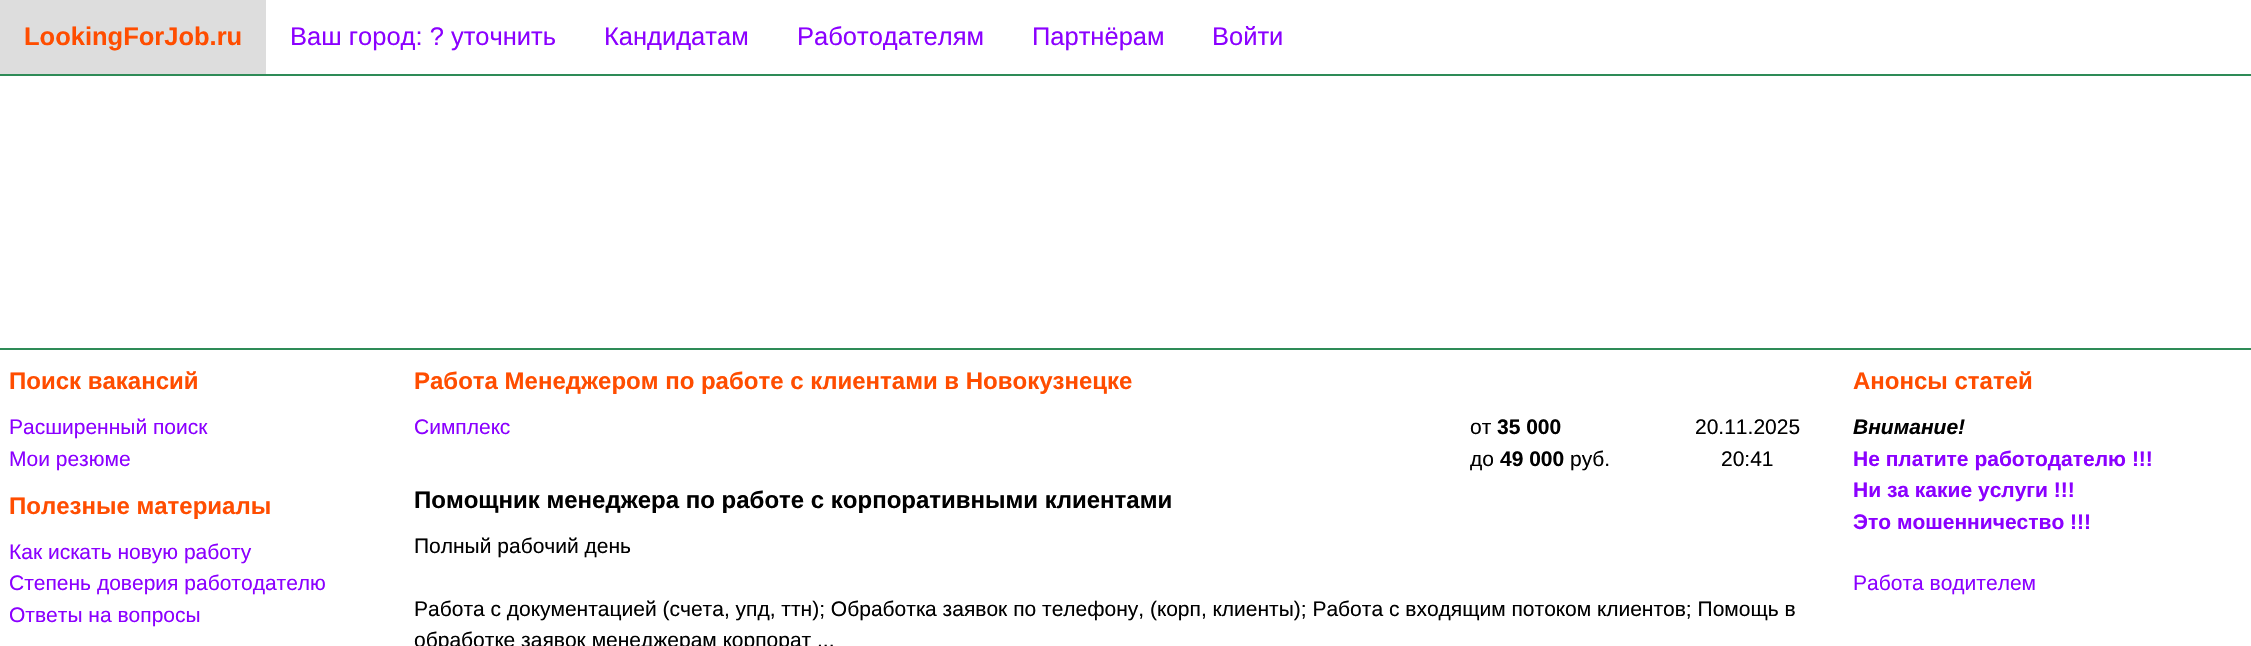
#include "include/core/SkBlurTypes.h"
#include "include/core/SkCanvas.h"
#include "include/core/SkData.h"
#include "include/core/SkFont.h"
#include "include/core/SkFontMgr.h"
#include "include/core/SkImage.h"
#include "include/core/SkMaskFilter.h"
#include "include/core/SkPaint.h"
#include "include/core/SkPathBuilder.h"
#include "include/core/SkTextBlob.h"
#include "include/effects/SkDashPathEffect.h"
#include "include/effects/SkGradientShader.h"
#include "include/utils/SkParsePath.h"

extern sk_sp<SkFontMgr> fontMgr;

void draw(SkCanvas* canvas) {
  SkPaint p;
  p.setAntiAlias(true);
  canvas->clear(SK_ColorWHITE);
  p.setColor(SkColorSetRGB(46, 139, 87));
  canvas->drawRect(SkRect::MakeLTRB(0, 74, 2251, 76), p);
  p.setColor(SkColorSetRGB(221, 221, 221));
  canvas->drawRect(SkRect::MakeLTRB(0, 0, 266, 74), p);
  p.setColor(SkColorSetRGB(46, 139, 87));
  canvas->drawRect(SkRect::MakeLTRB(0, 348, 2251, 350), p);
  SkFont font1(fontMgr->matchFamilyStyle("Liberation Sans", SkFontStyle::Bold()), 25.5f);
  font1.setSubpixel(true);
  p.setColor(SkColorSetRGB(255, 77, 0));
  canvas->drawString("LookingForJob.ru", 24, 45, font1, p);
  SkFont font2(fontMgr->matchFamilyStyle("Liberation Sans", SkFontStyle::Normal()), 25.5f);
  font2.setSubpixel(true);
  p.setColor(SkColorSetRGB(139, 0, 255));
  canvas->drawString("Ваш город: ? уточнить", 290, 45, font2, p);
  canvas->drawString("Кандидатам", 604, 45, font2, p);
  canvas->drawString("Работодателям", 797, 45, font2, p);
  canvas->drawString("Партнёрам", 1032, 45, font2, p);
  canvas->drawString("Войти", 1212, 45, font2, p);
  SkFont font3(fontMgr->matchFamilyStyle("Liberation Sans", SkFontStyle::Bold()), 24);
  font3.setSubpixel(true);
  p.setColor(SkColorSetRGB(255, 77, 0));
  canvas->drawString("Поиск вакансий", 9, 389, font3, p);
  SkFont font4(fontMgr->matchFamilyStyle("Liberation Sans", SkFontStyle::Normal()), 21);
  font4.setSubpixel(true);
  p.setColor(SkColorSetRGB(139, 0, 255));
  canvas->drawString("Расширенный поиск", 9, 434, font4, p);
  canvas->drawString("Мои резюме", 9, 466, font4, p);
  p.setColor(SkColorSetRGB(255, 77, 0));
  canvas->drawString("Полезные материалы", 9, 514, font3, p);
  p.setColor(SkColorSetRGB(139, 0, 255));
  canvas->drawString("Как искать новую работу", 9, 559, font4, p);
  canvas->drawString("Степень доверия работодателю", 9, 590, font4, p);
  canvas->drawString("Ответы на вопросы", 9, 622, font4, p);
  p.setColor(SkColorSetRGB(255, 77, 0));
  canvas->drawString("Работа Менеджером по работе с клиентами в Новокузнецке", 414, 389, font3, p);
  p.setColor(SkColorSetRGB(139, 0, 255));
  canvas->drawString("Симплекс", 414, 434, font4, p);
  p.setColor(SK_ColorBLACK);
  canvas->drawString("от", 1470, 434, font4, p);
  SkFont font5(fontMgr->matchFamilyStyle("Liberation Sans", SkFontStyle::Bold()), 21);
  font5.setSubpixel(true);
  canvas->drawString("35 000", 1497, 434, font5, p);
  canvas->drawString("до", 1470, 466, font4, p);
  canvas->drawString("49 000", 1500, 466, font5, p);
  canvas->drawString("руб.", 1570, 466, font4, p);
  canvas->drawString("20.11.2025", 1695, 434, font4, p);
  canvas->drawString("20:41", 1721, 466, font4, p);
  canvas->drawString("Помощник менеджера по работе с корпоративными клиентами", 414, 508, font3, p);
  canvas->drawString("Полный рабочий день", 414, 553, font4, p);
  canvas->drawString("Работа с документацией (счета, упд, ттн); Обработка заявок по телефону, (корп, клиенты); Работа с входящим потоком клиентов; Помощь в", 414, 616, font4, p);
  canvas->drawString("обработке заявок менеджерам корпорат ...", 414, 647, font4, p);
  p.setColor(SkColorSetRGB(255, 77, 0));
  canvas->drawString("Анонсы статей", 1853, 389, font3, p);
  SkFont font6(fontMgr->matchFamilyStyle("Liberation Sans", SkFontStyle::BoldItalic()), 21);
  font6.setSubpixel(true);
  p.setColor(SK_ColorBLACK);
  canvas->drawString("Внимание!", 1853, 434, font6, p);
  p.setColor(SkColorSetRGB(139, 0, 255));
  canvas->drawString("Не платите работодателю !!!", 1853, 466, font5, p);
  canvas->drawString("Ни за какие услуги !!!", 1853, 497, font5, p);
  canvas->drawString("Это мошенничество !!!", 1853, 529, font5, p);
  canvas->drawString("Работа водителем", 1853, 590, font4, p);
}
